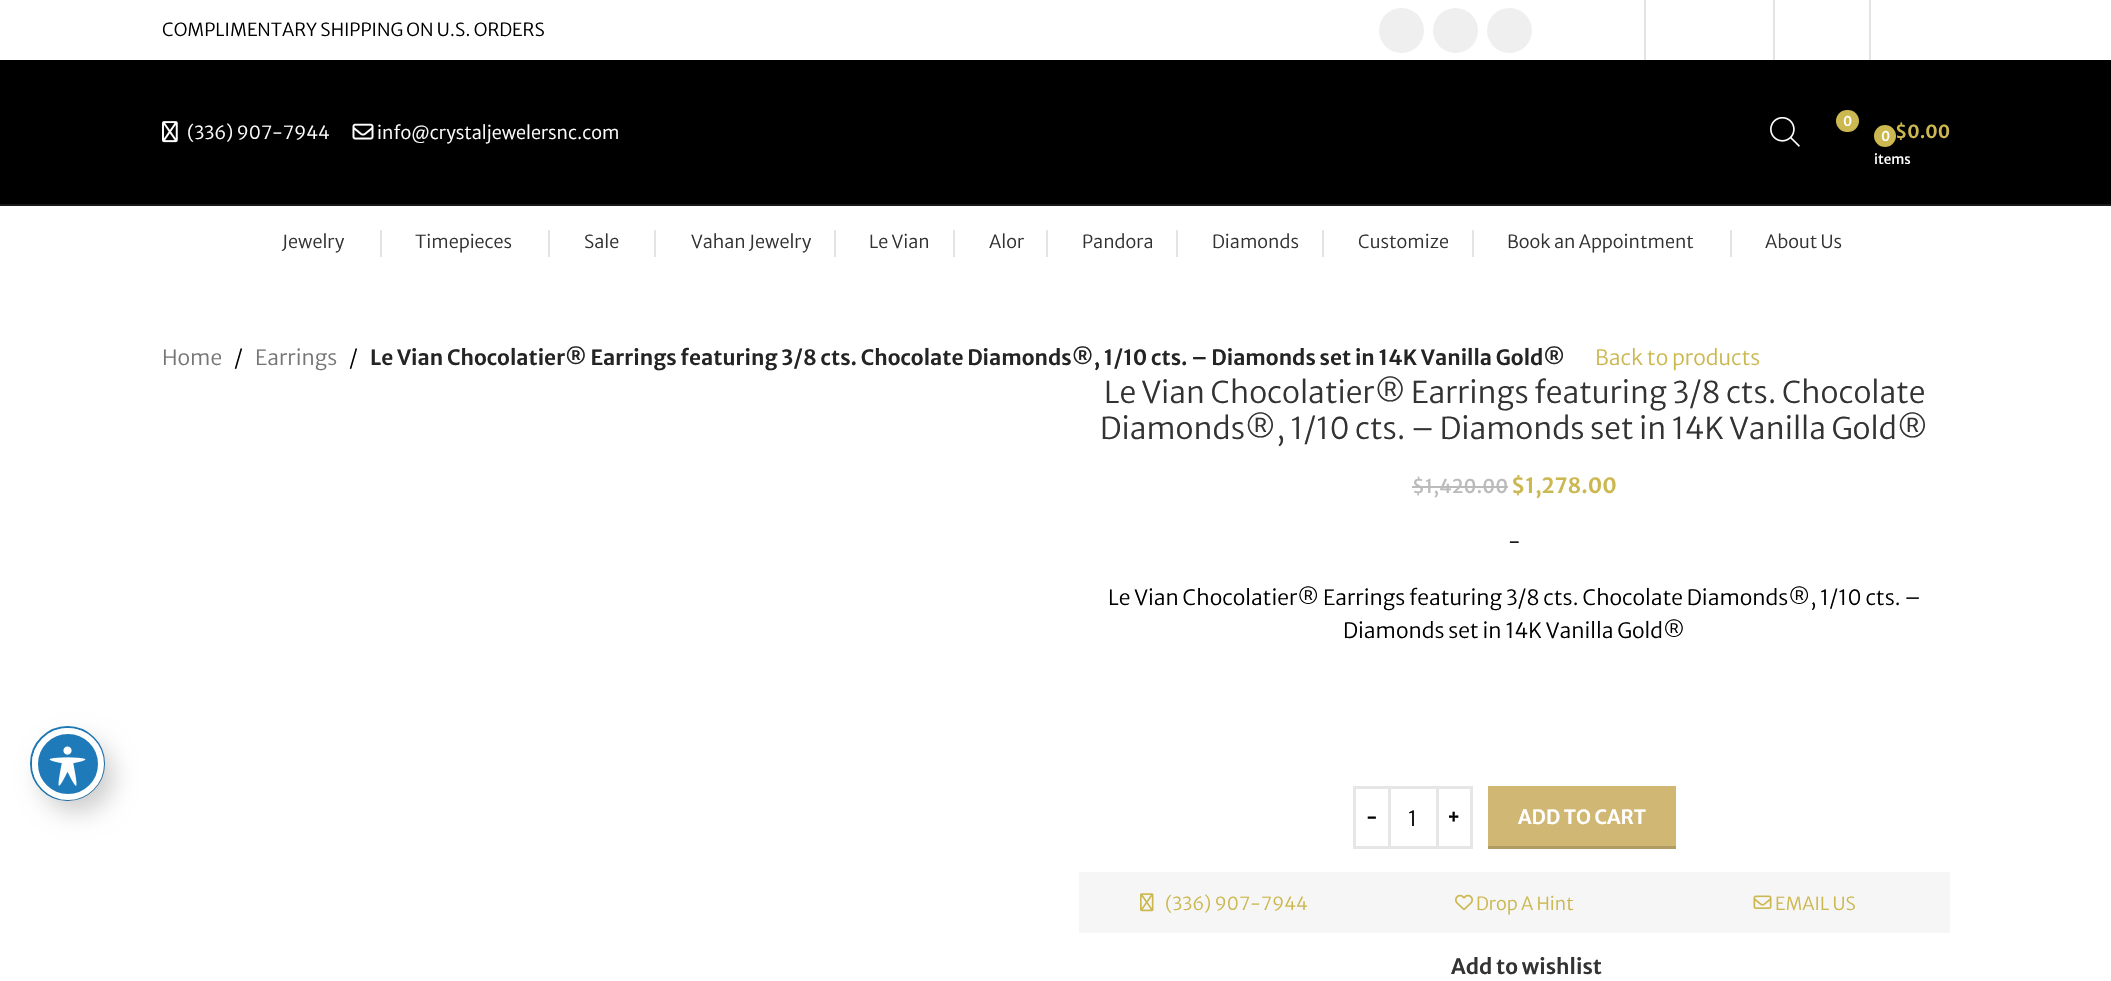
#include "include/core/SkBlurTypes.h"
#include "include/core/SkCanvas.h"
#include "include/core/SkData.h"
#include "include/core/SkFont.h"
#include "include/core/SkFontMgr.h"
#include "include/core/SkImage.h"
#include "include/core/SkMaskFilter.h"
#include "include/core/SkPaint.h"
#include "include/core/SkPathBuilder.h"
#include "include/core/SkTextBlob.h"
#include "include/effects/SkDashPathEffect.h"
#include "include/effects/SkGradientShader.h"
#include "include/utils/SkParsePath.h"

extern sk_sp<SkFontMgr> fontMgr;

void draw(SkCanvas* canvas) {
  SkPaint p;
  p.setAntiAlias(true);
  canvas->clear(SK_ColorWHITE);
  p.setStyle(SkPaint::kStroke_Style);
  p.setStrokeWidth(2);
  p.setColor(SkColorSetRGB(30, 122, 185));
  canvas->drawCircle(67.5f, 763.5f, 36.5f, p);
  p.setStyle(SkPaint::kFill_Style);
  p.setColor(SkColorSetARGB(51, 0, 0, 0));
  p.setMaskFilter(SkMaskFilter::MakeBlur(kNormal_SkBlurStyle, 12));
  canvas->drawRoundRect(SkRect::MakeLTRB(41, 740, 113, 812), 36, 36, p);
  p.setMaskFilter(nullptr);
  p.setColor(SkColorSetRGB(30, 122, 185));
  canvas->drawCircle(68, 764, 33, p);
  p.setStyle(SkPaint::kStroke_Style);
  p.setStrokeWidth(6);
  p.setColor(SK_ColorWHITE);
  canvas->drawCircle(68, 764, 33, p);
  canvas->drawImageRect(SkImages::DeferredFromEncodedData(SkData::MakeFromFileName("images/1.png")), SkRect::MakeLTRB(49, 746, 86, 786), SkSamplingOptions());
  p.setStyle(SkPaint::kFill_Style);
  p.setColor(SkColorSetRGB(239, 239, 239));
  canvas->drawCircle(1401.5f, 30.5f, 22.5f, p);
  canvas->drawCircle(1455.5f, 30.5f, 22.5f, p);
  canvas->drawCircle(1509.5f, 30.5f, 22.5f, p);
  p.setColor(SkColorSetRGB(228, 228, 228));
  canvas->drawRect(SkRect::MakeLTRB(1644, 0, 1646, 60), p);
  canvas->drawRect(SkRect::MakeLTRB(1773, 0, 1775, 60), p);
  canvas->drawRect(SkRect::MakeLTRB(1869, 0, 1871, 60), p);
  p.setColor(SK_ColorBLACK);
  canvas->drawRect(SkRect::MakeLTRB(0, 60, 2111, 204), p);
  p.setColor(SkColorSetRGB(26, 26, 26));
  canvas->drawRect(SkRect::MakeLTRB(0, 204, 2111, 206), p);
  canvas->drawImageRect(SkImages::DeferredFromEncodedData(SkData::MakeFromFileName("images/2.png")), SkRect::MakeLTRB(162, 121, 178, 143), SkSamplingOptions());
  canvas->drawImageRect(SkImages::DeferredFromEncodedData(SkData::MakeFromFileName("images/3.png")), SkRect::MakeLTRB(352, 123, 374, 140), SkSamplingOptions());
  canvas->drawImageRect(SkImages::DeferredFromEncodedData(SkData::MakeFromFileName("images/4.png")), SkRect::MakeLTRB(1770, 117, 1800, 147), SkSamplingOptions());
  p.setColor(SkColorSetRGB(204, 184, 80));
  canvas->drawRoundRect(SkRect::MakeLTRB(1836, 110, 1859, 132), 11, 11, p);
  canvas->drawCircle(1885, 136, 11, p);
  p.setColor(SkColorSetRGB(228, 228, 228));
  canvas->drawRect(SkRect::MakeLTRB(380, 230, 382, 257), p);
  canvas->drawRect(SkRect::MakeLTRB(548, 230, 550, 257), p);
  canvas->drawRect(SkRect::MakeLTRB(654, 230, 656, 257), p);
  canvas->drawRect(SkRect::MakeLTRB(834, 230, 836, 257), p);
  canvas->drawRect(SkRect::MakeLTRB(953, 230, 955, 257), p);
  canvas->drawRect(SkRect::MakeLTRB(1046, 230, 1048, 257), p);
  canvas->drawRect(SkRect::MakeLTRB(1176, 230, 1178, 257), p);
  canvas->drawRect(SkRect::MakeLTRB(1322, 230, 1324, 257), p);
  canvas->drawRect(SkRect::MakeLTRB(1472, 230, 1474, 257), p);
  canvas->drawRect(SkRect::MakeLTRB(1730, 230, 1732, 257), p);
  p.setColor(SkColorSetRGB(187, 187, 187));
  canvas->drawRect(SkRect::MakeLTRB(1412, 486, 1508, 488), p);
  p.setStyle(SkPaint::kStroke_Style);
  p.setStrokeWidth(3);
  p.setColor(SkColorSetRGB(230, 230, 230));
  canvas->drawRect(SkRect::MakeLTRB(1354.5f, 787.5f, 1389.5f, 847.5f), p);
  p.setStyle(SkPaint::kFill_Style);
  canvas->drawRect(SkRect::MakeLTRB(1391, 786, 1436, 789), p);
  canvas->drawRect(SkRect::MakeLTRB(1391, 846, 1436, 849), p);
  p.setStyle(SkPaint::kStroke_Style);
  canvas->drawRect(SkRect::MakeLTRB(1437.5f, 787.5f, 1471.5f, 847.5f), p);
  p.setStyle(SkPaint::kFill_Style);
  p.setColor(SkColorSetRGB(208, 183, 116));
  canvas->drawRect(SkRect::MakeLTRB(1488, 786, 1676, 846), p);
  p.setColor(SkColorSetRGB(177, 156, 99));
  canvas->drawRect(SkRect::MakeLTRB(1488, 846, 1676, 849), p);
  p.setColor(SkColorSetRGB(246, 246, 246));
  canvas->drawRect(SkRect::MakeLTRB(1079, 872, 1950, 933), p);
  canvas->drawImageRect(SkImages::DeferredFromEncodedData(SkData::MakeFromFileName("images/5.png")), SkRect::MakeLTRB(1140, 893, 1154, 912), SkSamplingOptions());
  canvas->drawImageRect(SkImages::DeferredFromEncodedData(SkData::MakeFromFileName("images/6.png")), SkRect::MakeLTRB(1455, 894, 1473, 911), SkSamplingOptions());
  canvas->drawImageRect(SkImages::DeferredFromEncodedData(SkData::MakeFromFileName("images/7.png")), SkRect::MakeLTRB(1753, 895, 1772, 909), SkSamplingOptions());
  SkFont font1(fontMgr->matchFamilyStyle("Merriweather Sans", SkFontStyle(300, SkFontStyle::kNormal_Width, SkFontStyle::kUpright_Slant)), 18);
  font1.setSubpixel(true);
  p.setColor(SK_ColorBLACK);
  canvas->drawString("COMPLIMENTARY SHIPPING ON U.S. ORDERS", 162, 36, font1, p);
  p.setColor(SK_ColorWHITE);
  canvas->drawString("(336) 907-7944", 187, 139, font1, p);
  canvas->drawString("info@crystaljewelersnc.com", 377, 139, font1, p);
  SkFont font2(fontMgr->matchFamilyStyle("Merriweather Sans", SkFontStyle::Normal()), 13.5f);
  font2.setSubpixel(true);
  canvas->drawString("0", 1843, 126, font2, p);
  canvas->drawString("0", 1881, 141, font2, p);
  canvas->drawString("items", 1874, 164, font2, p);
  SkFont font3(fontMgr->matchFamilyStyle("Merriweather Sans", SkFontStyle(600, SkFontStyle::kNormal_Width, SkFontStyle::kUpright_Slant)), 18);
  font3.setSubpixel(true);
  p.setColor(SkColorSetRGB(204, 184, 80));
  canvas->drawString("$0.00", 1895, 138, font3, p);
  p.setColor(SkColorSetRGB(51, 51, 51));
  canvas->drawString("Jewelry", 282, 248, font1, p);
  canvas->drawString("Timepieces", 415, 248, font1, p);
  canvas->drawString("Sale", 584, 248, font1, p);
  canvas->drawString("Vahan Jewelry", 691, 248, font1, p);
  canvas->drawString("Le Vian", 869, 248, font1, p);
  canvas->drawString("Alor", 989, 248, font1, p);
  canvas->drawString("Pandora", 1082, 248, font1, p);
  canvas->drawString("Diamonds", 1212, 248, font1, p);
  canvas->drawString("Customize", 1358, 248, font1, p);
  canvas->drawString("Book an Appointment", 1507, 248, font1, p);
  canvas->drawString("About Us", 1765, 248, font1, p);
  SkFont font4(fontMgr->matchFamilyStyle("Merriweather Sans", SkFontStyle(300, SkFontStyle::kNormal_Width, SkFontStyle::kUpright_Slant)), 21);
  font4.setSubpixel(true);
  p.setColor(SkColorSetRGB(118, 118, 118));
  canvas->drawString("Home", 162, 365, font4, p);
  p.setColor(SK_ColorBLACK);
  canvas->drawString("/", 234, 365, font4, p);
  p.setColor(SkColorSetRGB(118, 118, 118));
  canvas->drawString("Earrings", 255, 365, font4, p);
  p.setColor(SK_ColorBLACK);
  canvas->drawString("/", 349, 365, font4, p);
  SkFont font5(fontMgr->matchFamilyStyle("Merriweather Sans", SkFontStyle(600, SkFontStyle::kNormal_Width, SkFontStyle::kUpright_Slant)), 21);
  font5.setSubpixel(true);
  p.setColor(SkColorSetRGB(36, 36, 36));
  canvas->drawString("Le Vian Chocolatier® Earrings featuring 3/8 cts. Chocolate Diamonds®, 1/10 cts. – Diamonds set in 14K Vanilla Gold®", 370, 365, font5, p);
  p.setColor(SkColorSetRGB(204, 184, 80));
  canvas->drawString("Back to products", 1595, 365, font4, p);
  SkFont font6(fontMgr->matchFamilyStyle("Merriweather Sans", SkFontStyle(300, SkFontStyle::kNormal_Width, SkFontStyle::kUpright_Slant)), 30);
  font6.setSubpixel(true);
  p.setColor(SkColorSetRGB(51, 51, 51));
  canvas->drawString("Le Vian Chocolatier® Earrings featuring 3/8 cts. Chocolate", 1104, 403, font6, p);
  canvas->drawString("Diamonds®, 1/10 cts. – Diamonds set in 14K Vanilla Gold®", 1100, 439, font6, p);
  SkFont font7(fontMgr->matchFamilyStyle("Merriweather Sans", SkFontStyle::Normal()), 19);
  font7.setSubpixel(true);
  p.setColor(SkColorSetRGB(187, 187, 187));
  canvas->drawString("$1,420.00", 1412, 493, font7, p);
  p.setColor(SkColorSetRGB(204, 184, 80));
  canvas->drawString("$1,278.00", 1511, 493, font5, p);
  p.setColor(SK_ColorBLACK);
  canvas->drawString("-", 1508, 549, font4, p);
  canvas->drawString("Le Vian Chocolatier® Earrings featuring 3/8 cts. Chocolate Diamonds®, 1/10 cts. –", 1108, 605, font4, p);
  canvas->drawString("Diamonds set in 14K Vanilla Gold®", 1343, 638, font4, p);
  SkFont font8(fontMgr->matchFamilyStyle("Merriweather Sans", SkFontStyle(600, SkFontStyle::kNormal_Width, SkFontStyle::kUpright_Slant)), 19.5f);
  font8.setSubpixel(true);
  canvas->drawString("-", 1366, 824, font8, p);
  canvas->drawString("1", 1408, 826, font4, p);
  canvas->drawString("+", 1447, 824, font8, p);
  p.setColor(SK_ColorWHITE);
  canvas->drawString("ADD TO CART", 1518, 824, font8, p);
  p.setColor(SkColorSetRGB(204, 184, 80));
  canvas->drawString("(336) 907-7944", 1165, 910, font1, p);
  canvas->drawString("Drop A Hint", 1476, 910, font1, p);
  canvas->drawString("EMAIL US", 1775, 910, font1, p);
  p.setColor(SkColorSetRGB(51, 51, 51));
  canvas->drawString("Add to wishlist", 1451, 974, font5, p);
}
